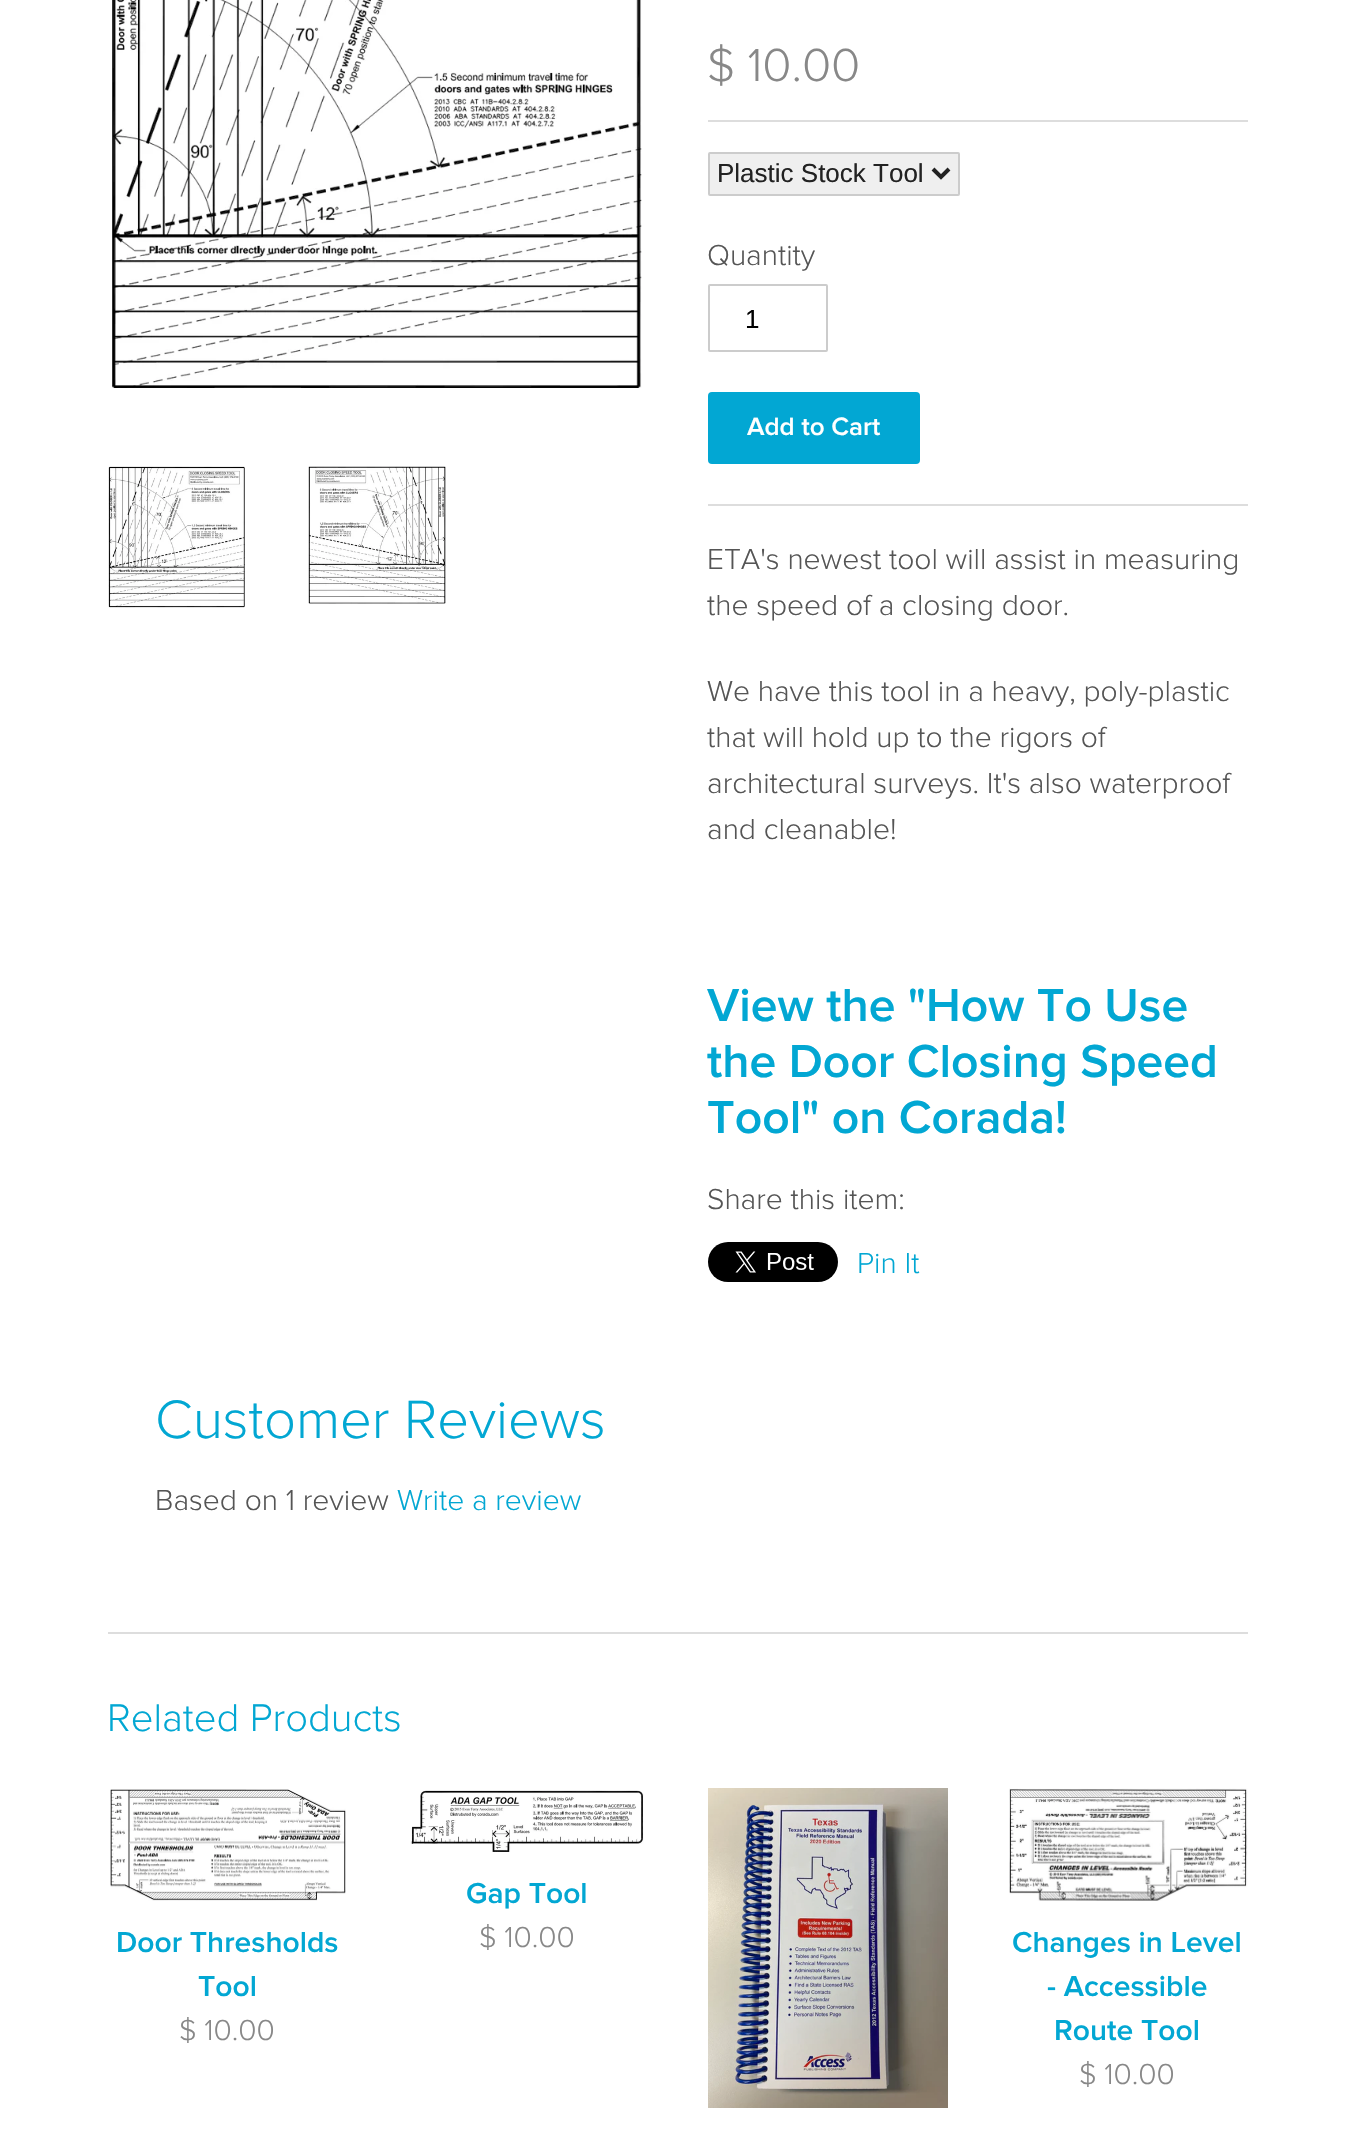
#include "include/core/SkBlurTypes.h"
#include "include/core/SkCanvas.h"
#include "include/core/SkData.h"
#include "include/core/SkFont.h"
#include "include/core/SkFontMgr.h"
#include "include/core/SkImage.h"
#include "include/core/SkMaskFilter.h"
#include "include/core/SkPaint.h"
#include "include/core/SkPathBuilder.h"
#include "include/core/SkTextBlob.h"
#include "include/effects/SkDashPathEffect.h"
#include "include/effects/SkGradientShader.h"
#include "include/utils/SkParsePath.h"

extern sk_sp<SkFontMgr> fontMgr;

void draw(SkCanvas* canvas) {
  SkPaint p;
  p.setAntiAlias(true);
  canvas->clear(SK_ColorWHITE);
  canvas->drawImageRect(SkImages::DeferredFromEncodedData(SkData::MakeFromFileName("images/1.png")), SkRect::MakeLTRB(112, 0, 642, 388), SkSamplingOptions());
  canvas->drawImageRect(SkImages::DeferredFromEncodedData(SkData::MakeFromFileName("images/2.png")), SkRect::MakeLTRB(108, 466, 245, 608), SkSamplingOptions());
  canvas->drawImageRect(SkImages::DeferredFromEncodedData(SkData::MakeFromFileName("images/3.png")), SkRect::MakeLTRB(308, 466, 446, 604), SkSamplingOptions());
  p.setColor(SkColorSetRGB(221, 221, 221));
  canvas->drawRect(SkRect::MakeLTRB(708, 120, 1248, 122), p);
  canvas->drawRect(SkRect::MakeLTRB(708, 504, 1248, 506), p);
  p.setColor(SkColorSetRGB(239, 239, 239));
  canvas->drawRoundRect(SkRect::MakeLTRB(709, 153, 959, 195), 1, 1, p);
  p.setStyle(SkPaint::kStroke_Style);
  p.setStrokeWidth(2);
  p.setColor(SkColorSetRGB(204, 204, 204));
  canvas->drawRoundRect(SkRect::MakeLTRB(709, 153, 959, 195), 1, 1, p);
  p.setStrokeWidth(4);
  p.setColor(SkColorSetRGB(34, 34, 34));
  canvas->drawPath(SkPathBuilder().moveTo(933, 169).lineTo(941, 177).lineTo(949, 169).detach(), p);
  p.setStrokeWidth(2);
  p.setColor(SkColorSetRGB(204, 204, 204));
  canvas->drawRoundRect(SkRect::MakeLTRB(709, 285, 827, 351), 1, 1, p);
  p.setStyle(SkPaint::kFill_Style);
  p.setColor(SkColorSetRGB(2, 167, 211));
  canvas->drawRoundRect(SkRect::MakeLTRB(708, 392, 920, 464), 4, 4, p);
  canvas->drawImageRect(SkImages::DeferredFromEncodedData(SkData::MakeFromFileName("images/4.png")), SkRect::MakeLTRB(708, 1242, 838, 1282), SkSamplingOptions());
  p.setColor(SkColorSetRGB(221, 221, 221));
  canvas->drawRect(SkRect::MakeLTRB(108, 1632, 1248, 1634), p);
  canvas->drawImageRect(SkImages::DeferredFromEncodedData(SkData::MakeFromFileName("images/5.png")), SkRect::MakeLTRB(410, 1790, 644, 1852), SkSamplingOptions());
  canvas->drawImageRect(SkImages::DeferredFromEncodedData(SkData::MakeFromFileName("images/6.png")), SkRect::MakeLTRB(708, 1788, 948, 2108), SkSamplingOptions());
  canvas->drawImageRect(SkImages::DeferredFromEncodedData(SkData::MakeFromFileName("images/7.png")), SkRect::MakeLTRB(110, 1789, 346, 1901), SkSamplingOptions());
  canvas->drawImageRect(SkImages::DeferredFromEncodedData(SkData::MakeFromFileName("images/8.png")), SkRect::MakeLTRB(1009, 1788, 1248, 1901), SkSamplingOptions());
  SkFont font1(fontMgr->matchFamilyStyle("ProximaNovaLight", SkFontStyle(300, SkFontStyle::kNormal_Width, SkFontStyle::kUpright_Slant)), 48);
  font1.setSubpixel(true);
  p.setColor(SkColorSetRGB(136, 136, 136));
  canvas->drawString("$ 10.00", 707, 81, font1, p);
  SkFont font2(fontMgr->matchFamilyStyle("Liberation Sans", SkFontStyle::Normal()), 26);
  font2.setSubpixel(true);
  p.setColor(SkColorSetRGB(34, 34, 34));
  canvas->drawString("Plastic Stock Tool", 717, 182, font2, p);
  SkFont font3(fontMgr->matchFamilyStyle("ProximaNovaLight", SkFontStyle(300, SkFontStyle::kNormal_Width, SkFontStyle::kUpright_Slant)), 30);
  font3.setSubpixel(true);
  p.setColor(SkColorSetRGB(85, 85, 85));
  canvas->drawString("Quantity", 707, 265, font3, p);
  p.setColor(SK_ColorBLACK);
  canvas->drawString("1", 745, 328, font2, p);
  SkFont font4(fontMgr->matchFamilyStyle("ProximaNovaLight", SkFontStyle(600, SkFontStyle::kNormal_Width, SkFontStyle::kUpright_Slant)), 26);
  font4.setSubpixel(true);
  p.setColor(SK_ColorWHITE);
  canvas->drawString("Add to Cart", 747, 435, font4, p);
  p.setColor(SkColorSetRGB(85, 85, 85));
  canvas->drawString("ETA's newest tool will assist in measuring", 707, 569, font3, p);
  canvas->drawString("the speed of a closing door.", 707, 615, font3, p);
  canvas->drawString("We have this tool in a heavy, poly-plastic", 707, 701, font3, p);
  canvas->drawString("that will hold up to the rigors of", 707, 747, font3, p);
  canvas->drawString("architectural surveys. It's also waterproof", 707, 793, font3, p);
  canvas->drawString("and cleanable!", 707, 839, font3, p);
  SkFont font5(fontMgr->matchFamilyStyle("ProximaNovaLight", SkFontStyle(600, SkFontStyle::kNormal_Width, SkFontStyle::kUpright_Slant)), 48);
  font5.setSubpixel(true);
  p.setColor(SkColorSetRGB(2, 167, 211));
  canvas->drawString("View the \"How To Use", 707, 1021, font5, p);
  canvas->drawString("the Door Closing Speed", 707, 1077, font5, p);
  canvas->drawString("Tool\" on Corada!", 707, 1133, font5, p);
  p.setColor(SkColorSetRGB(85, 85, 85));
  canvas->drawString("Share this item:", 707, 1209, font3, p);
  p.setColor(SkColorSetRGB(2, 167, 211));
  canvas->drawString("Pin It", 857, 1273, font3, p);
  SkFont font6(fontMgr->matchFamilyStyle("ProximaNovaLight", SkFontStyle(300, SkFontStyle::kNormal_Width, SkFontStyle::kUpright_Slant)), 56);
  font6.setSubpixel(true);
  canvas->drawString("Customer Reviews", 155, 1438, font6, p);
  p.setColor(SkColorSetRGB(85, 85, 85));
  canvas->drawString("Based on 1 review", 155, 1510, font3, p);
  p.setColor(SkColorSetRGB(2, 167, 211));
  canvas->drawString("Write a review", 397, 1510, font3, p);
  SkFont font7(fontMgr->matchFamilyStyle("ProximaNovaLight", SkFontStyle(300, SkFontStyle::kNormal_Width, SkFontStyle::kUpright_Slant)), 40);
  font7.setSubpixel(true);
  canvas->drawString("Related Products", 107, 1731, font7, p);
  SkFont font8(fontMgr->matchFamilyStyle("ProximaNovaLight", SkFontStyle(600, SkFontStyle::kNormal_Width, SkFontStyle::kUpright_Slant)), 30);
  font8.setSubpixel(true);
  canvas->drawString("Gap Tool", 466, 1903, font8, p);
  p.setColor(SkColorSetRGB(136, 136, 136));
  canvas->drawString("$ 10.00", 479, 1947, font3, p);
  p.setColor(SkColorSetRGB(2, 167, 211));
  canvas->drawString("Door Thresholds", 116, 1952, font8, p);
  canvas->drawString("Tool", 198, 1996, font8, p);
  p.setColor(SkColorSetRGB(136, 136, 136));
  canvas->drawString("$ 10.00", 179, 2040, font3, p);
  p.setColor(SkColorSetRGB(2, 167, 211));
  canvas->drawString("Changes in Level", 1012, 1952, font8, p);
  canvas->drawString("- Accessible", 1047, 1996, font8, p);
  canvas->drawString("Route Tool", 1054, 2040, font8, p);
  p.setColor(SkColorSetRGB(136, 136, 136));
  canvas->drawString("$ 10.00", 1079, 2084, font3, p);
}
